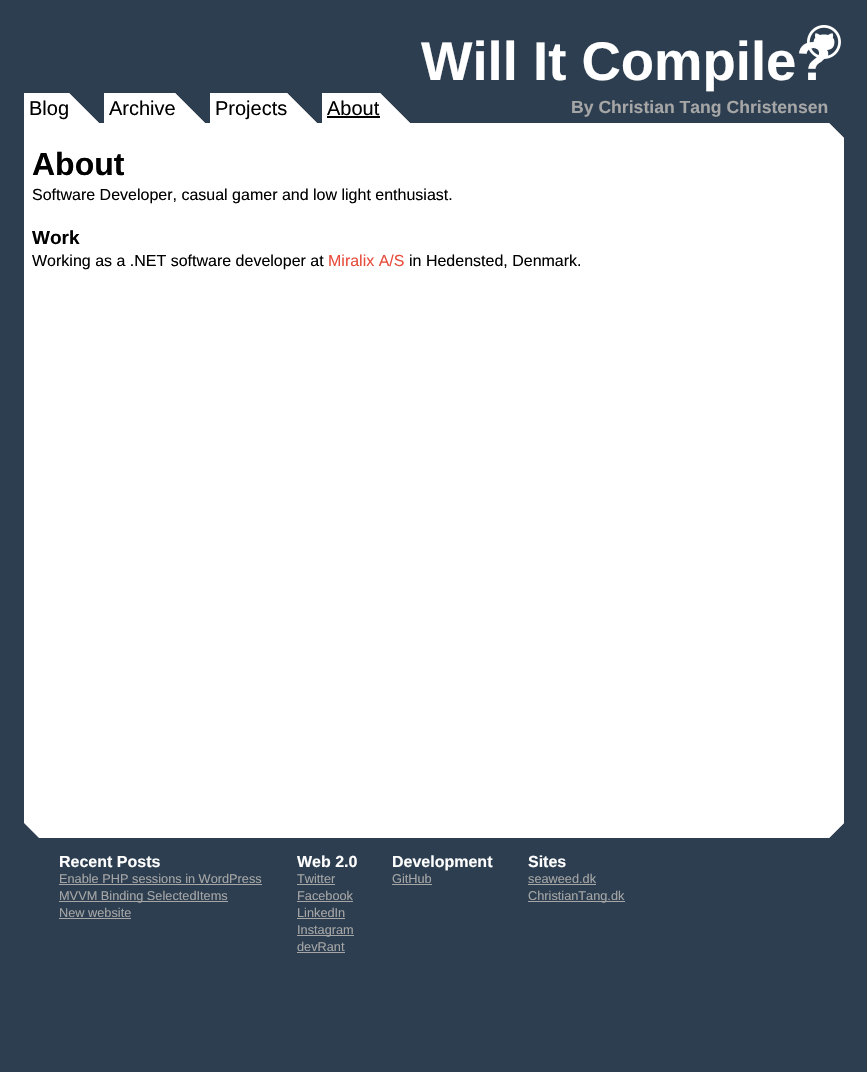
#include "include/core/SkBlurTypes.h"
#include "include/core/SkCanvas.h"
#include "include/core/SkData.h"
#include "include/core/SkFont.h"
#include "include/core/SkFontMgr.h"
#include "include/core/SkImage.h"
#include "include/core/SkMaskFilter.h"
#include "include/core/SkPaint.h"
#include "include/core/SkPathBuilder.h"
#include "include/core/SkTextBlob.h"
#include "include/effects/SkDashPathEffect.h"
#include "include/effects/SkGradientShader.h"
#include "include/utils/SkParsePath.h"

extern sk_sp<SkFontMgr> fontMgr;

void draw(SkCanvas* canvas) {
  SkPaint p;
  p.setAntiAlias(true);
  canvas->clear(SkColorSetRGB(44, 62, 80));
  p.setColor(SK_ColorWHITE);
  canvas->drawRect(SkRect::MakeLTRB(24, 93, 99, 123), p);
  p.setColor(SkColorSetRGB(44, 62, 80));
  canvas->drawPath(SkPathBuilder().moveTo(69, 93).lineTo(99, 93).lineTo(99, 123).close().detach(), p);
  p.setColor(SK_ColorWHITE);
  canvas->drawPath(SkPathBuilder().moveTo(69, 123).lineTo(69, 93).lineTo(99, 123).close().detach(), p);
  canvas->drawRect(SkRect::MakeLTRB(104, 93, 205, 123), p);
  p.setColor(SkColorSetRGB(44, 62, 80));
  canvas->drawPath(SkPathBuilder().moveTo(175, 93).lineTo(205, 93).lineTo(205, 123).close().detach(), p);
  p.setColor(SK_ColorWHITE);
  canvas->drawPath(SkPathBuilder().moveTo(175, 123).lineTo(175, 93).lineTo(205, 123).close().detach(), p);
  canvas->drawRect(SkRect::MakeLTRB(210, 93, 317, 123), p);
  p.setColor(SkColorSetRGB(44, 62, 80));
  canvas->drawPath(SkPathBuilder().moveTo(287, 93).lineTo(317, 93).lineTo(317, 123).close().detach(), p);
  p.setColor(SK_ColorWHITE);
  canvas->drawPath(SkPathBuilder().moveTo(287, 123).lineTo(287, 93).lineTo(317, 123).close().detach(), p);
  canvas->drawRect(SkRect::MakeLTRB(322, 93, 410, 123), p);
  p.setColor(SK_ColorBLACK);
  canvas->drawRect(SkRect::MakeLTRB(327, 116, 380, 118), p);
  p.setColor(SkColorSetRGB(44, 62, 80));
  canvas->drawPath(SkPathBuilder().moveTo(380, 93).lineTo(410, 93).lineTo(410, 123).close().detach(), p);
  p.setColor(SK_ColorWHITE);
  canvas->drawPath(SkPathBuilder().moveTo(380, 123).lineTo(380, 93).lineTo(410, 123).close().detach(), p);
  canvas->drawRect(SkRect::MakeLTRB(24, 123, 844, 838), p);
  p.setColor(SkColorSetRGB(44, 62, 80));
  canvas->drawPath(SkPathBuilder().moveTo(829, 123).lineTo(844, 123).lineTo(844, 138).close().detach(), p);
  p.setColor(SK_ColorWHITE);
  canvas->drawPath(SkPathBuilder().moveTo(829, 138).lineTo(829, 123).lineTo(844, 138).close().detach(), p);
  p.setColor(SkColorSetRGB(44, 62, 80));
  canvas->drawPath(SkPathBuilder().moveTo(39, 838).lineTo(24, 838).lineTo(24, 823).close().detach(), p);
  canvas->drawPath(SkPathBuilder().moveTo(844, 838).lineTo(829, 838).lineTo(844, 823).close().detach(), p);
  p.setColor(SK_ColorWHITE);
  canvas->drawPath(SkPathBuilder().moveTo(829, 838).lineTo(829, 823).lineTo(844, 823).close().detach(), p);
  p.setColor(SkColorSetRGB(166, 166, 166));
  canvas->drawRect(SkRect::MakeLTRB(59, 884, 262, 885), p);
  canvas->drawRect(SkRect::MakeLTRB(59, 901, 228, 902), p);
  canvas->drawRect(SkRect::MakeLTRB(59, 918, 131, 919), p);
  canvas->drawRect(SkRect::MakeLTRB(297, 884, 335, 885), p);
  canvas->drawRect(SkRect::MakeLTRB(297, 901, 353, 902), p);
  canvas->drawRect(SkRect::MakeLTRB(297, 918, 345, 919), p);
  canvas->drawRect(SkRect::MakeLTRB(297, 935, 354, 936), p);
  canvas->drawRect(SkRect::MakeLTRB(297, 952, 345, 953), p);
  canvas->drawRect(SkRect::MakeLTRB(392, 884, 432, 885), p);
  canvas->drawRect(SkRect::MakeLTRB(528, 884, 596, 885), p);
  canvas->drawRect(SkRect::MakeLTRB(528, 901, 625, 902), p);
  SkFont font1(fontMgr->matchFamilyStyle("Liberation Sans", SkFontStyle::Bold()), 54.5f);
  font1.setSubpixel(true);
  p.setColor(SK_ColorWHITE);
  canvas->drawString("Will It Compile?", 421, 80, font1, p);
  canvas->drawImageRect(SkImages::DeferredFromEncodedData(SkData::MakeFromFileName("images/1.png")), SkRect::MakeLTRB(807, 25, 841, 59), SkSamplingOptions());
  SkFont font2(fontMgr->matchFamilyStyle("Liberation Sans", SkFontStyle::Normal()), 20);
  font2.setSubpixel(true);
  p.setColor(SK_ColorBLACK);
  canvas->drawString("Blog", 29, 115, font2, p);
  canvas->drawString("Archive", 109, 115, font2, p);
  canvas->drawString("Projects", 215, 115, font2, p);
  canvas->drawString("About", 327, 115, font2, p);
  SkFont font3(fontMgr->matchFamilyStyle("Liberation Sans", SkFontStyle::Bold()), 17.6f);
  font3.setSubpixel(true);
  p.setColor(SkColorSetRGB(166, 166, 166));
  canvas->drawString("By Christian Tang Christensen", 571, 113, font3, p);
  SkFont font4(fontMgr->matchFamilyStyle("Liberation Sans", SkFontStyle::Bold()), 32);
  font4.setSubpixel(true);
  p.setColor(SK_ColorBLACK);
  canvas->drawString("About", 32, 175, font4, p);
  SkFont font5(fontMgr->matchFamilyStyle("Liberation Sans", SkFontStyle::Normal()), 16);
  font5.setSubpixel(true);
  canvas->drawString("Software Developer, casual gamer and low light enthusiast.", 32, 200, font5, p);
  SkFont font6(fontMgr->matchFamilyStyle("Liberation Sans", SkFontStyle::Bold()), 19);
  font6.setSubpixel(true);
  canvas->drawString("Work", 32, 244, font6, p);
  canvas->drawString("Working as a .NET software developer at", 32, 266, font5, p);
  p.setColor(SkColorSetRGB(231, 76, 60));
  canvas->drawString("Miralix A/S", 328, 266, font5, p);
  p.setColor(SK_ColorBLACK);
  canvas->drawString("in Hedensted, Denmark.", 409, 266, font5, p);
  SkFont font7(fontMgr->matchFamilyStyle("Liberation Sans", SkFontStyle::Bold()), 16);
  font7.setSubpixel(true);
  p.setColor(SK_ColorWHITE);
  canvas->drawString("Recent Posts", 59, 867, font7, p);
  SkFont font8(fontMgr->matchFamilyStyle("Liberation Sans", SkFontStyle::Normal()), 12.75f);
  font8.setSubpixel(true);
  p.setColor(SkColorSetRGB(166, 166, 166));
  canvas->drawString("Enable PHP sessions in WordPress", 59, 883, font8, p);
  canvas->drawString("MVVM Binding SelectedItems", 59, 900, font8, p);
  canvas->drawString("New website", 59, 917, font8, p);
  p.setColor(SK_ColorWHITE);
  canvas->drawString("Web 2.0", 297, 867, font7, p);
  p.setColor(SkColorSetRGB(166, 166, 166));
  canvas->drawString("Twitter", 297, 883, font8, p);
  canvas->drawString("Facebook", 297, 900, font8, p);
  canvas->drawString("LinkedIn", 297, 917, font8, p);
  canvas->drawString("Instagram", 297, 934, font8, p);
  canvas->drawString("devRant", 297, 951, font8, p);
  p.setColor(SK_ColorWHITE);
  canvas->drawString("Development", 392, 867, font7, p);
  p.setColor(SkColorSetRGB(166, 166, 166));
  canvas->drawString("GitHub", 392, 883, font8, p);
  p.setColor(SK_ColorWHITE);
  canvas->drawString("Sites", 528, 867, font7, p);
  p.setColor(SkColorSetRGB(166, 166, 166));
  canvas->drawString("seaweed.dk", 528, 883, font8, p);
  canvas->drawString("ChristianTang.dk", 528, 900, font8, p);
}
